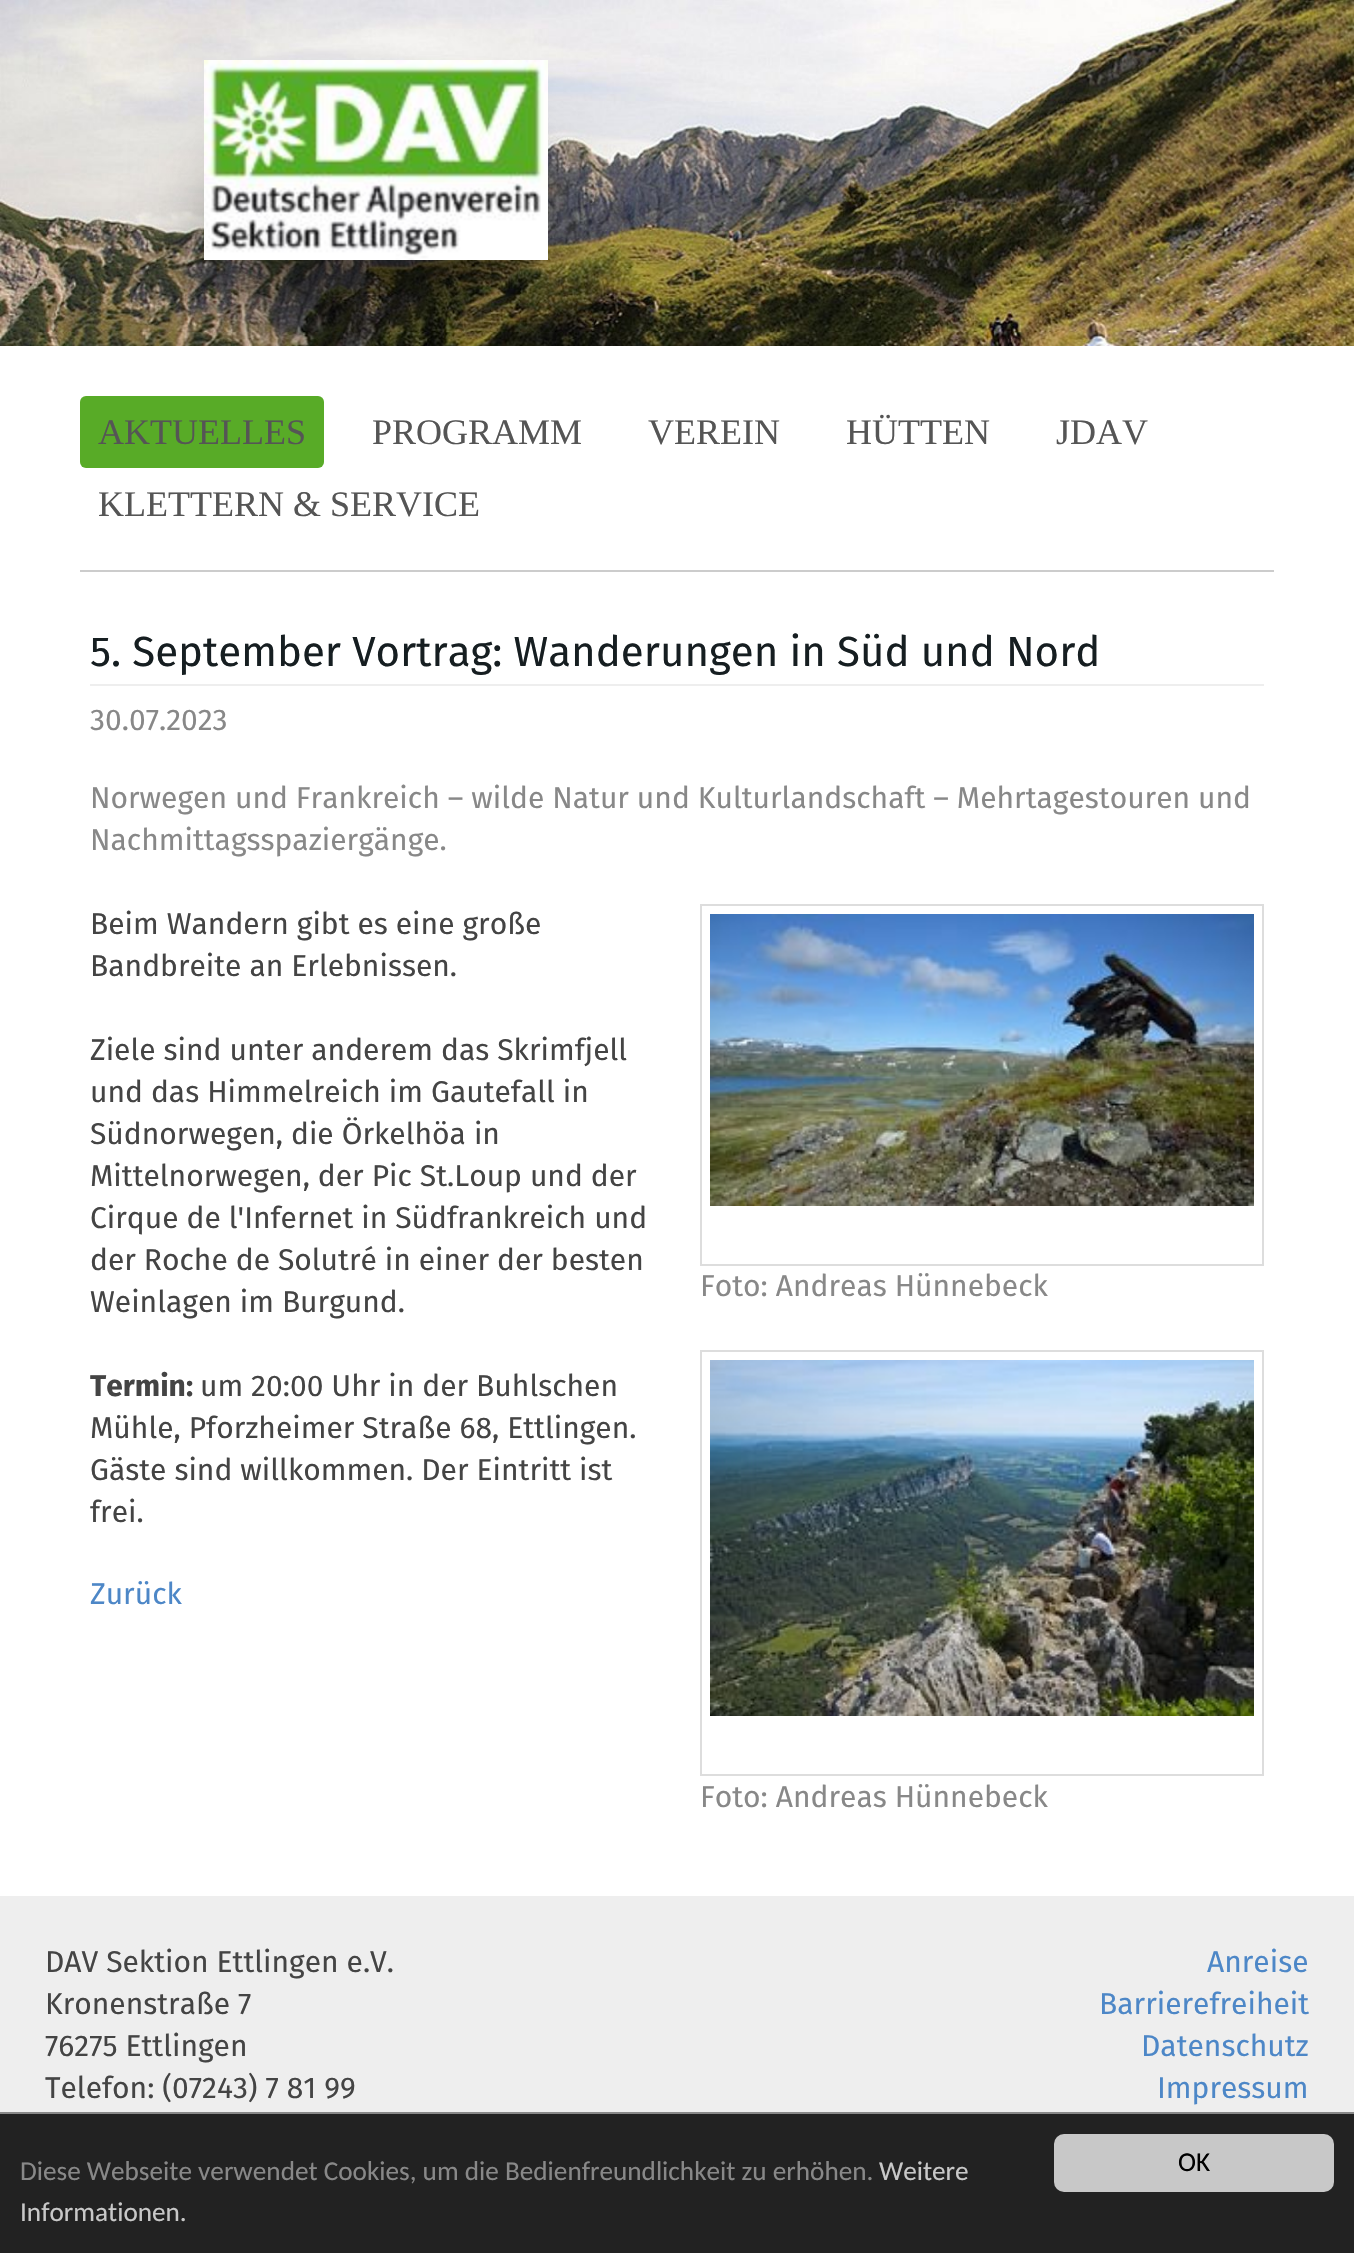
#include "include/core/SkBlurTypes.h"
#include "include/core/SkCanvas.h"
#include "include/core/SkData.h"
#include "include/core/SkFont.h"
#include "include/core/SkFontMgr.h"
#include "include/core/SkImage.h"
#include "include/core/SkMaskFilter.h"
#include "include/core/SkPaint.h"
#include "include/core/SkPathBuilder.h"
#include "include/core/SkTextBlob.h"
#include "include/effects/SkDashPathEffect.h"
#include "include/effects/SkGradientShader.h"
#include "include/utils/SkParsePath.h"

extern sk_sp<SkFontMgr> fontMgr;

void draw(SkCanvas* canvas) {
  SkPaint p;
  p.setAntiAlias(true);
  canvas->clear(SkColorSetRGB(238, 238, 238));
  canvas->drawImageRect(SkImages::DeferredFromEncodedData(SkData::MakeFromFileName("images/1.png")), SkRect::MakeLTRB(0, 0, 1354, 346), SkSamplingOptions());
  p.setColor(SkColorSetARGB(191, 0, 0, 0));
  p.setMaskFilter(SkMaskFilter::MakeBlur(kNormal_SkBlurStyle, 50));
  canvas->drawRect(SkRect::MakeLTRB(238, 174, 514, 306), p);
  p.setMaskFilter(nullptr);
  canvas->drawImageRect(SkImages::DeferredFromEncodedData(SkData::MakeFromFileName("images/2.png")), SkRect::MakeLTRB(204, 60, 548, 260), SkSamplingOptions());
  p.setColor(SK_ColorWHITE);
  canvas->drawRect(SkRect::MakeLTRB(0, 346, 1354, 572), p);
  p.setColor(SkColorSetRGB(204, 204, 204));
  canvas->drawRect(SkRect::MakeLTRB(80, 570, 1274, 572), p);
  p.setColor(SkColorSetRGB(88, 171, 39));
  canvas->drawRoundRect(SkRect::MakeLTRB(80, 396, 324, 468), 6, 6, p);
  p.setColor(SK_ColorWHITE);
  canvas->drawRect(SkRect::MakeLTRB(0, 572, 1354, 1896), p);
  p.setColor(SkColorSetRGB(238, 238, 238));
  canvas->drawRect(SkRect::MakeLTRB(90, 684, 1264, 686), p);
  p.setStyle(SkPaint::kStroke_Style);
  p.setStrokeWidth(2);
  p.setColor(SkColorSetRGB(221, 221, 221));
  canvas->drawRect(SkRect::MakeLTRB(701, 905, 1263, 1265), p);
  canvas->drawImageRect(SkImages::DeferredFromEncodedData(SkData::MakeFromFileName("images/3.png")), SkRect::MakeLTRB(710, 914, 1254, 1206), SkSamplingOptions());
  canvas->drawRect(SkRect::MakeLTRB(701, 1351, 1263, 1775), p);
  canvas->drawImageRect(SkImages::DeferredFromEncodedData(SkData::MakeFromFileName("images/4.png")), SkRect::MakeLTRB(710, 1360, 1254, 1716), SkSamplingOptions());
  p.setStyle(SkPaint::kFill_Style);
  p.setColor(SkColorSetRGB(34, 34, 34));
  canvas->drawRect(SkRect::MakeLTRB(0, 2114, 1354, 2253), p);
  p.setColor(SkColorSetRGB(136, 136, 136));
  canvas->drawRect(SkRect::MakeLTRB(0, 2112, 1354, 2114), p);
  p.setColor(SkColorSetRGB(200, 200, 200));
  canvas->drawRoundRect(SkRect::MakeLTRB(1054, 2134, 1334, 2192), 10, 10, p);
  SkFont font1(fontMgr->matchFamilyStyle("Liberation Serif", SkFontStyle::Normal()), 36);
  font1.setSubpixel(true);
  p.setColor(SkColorSetRGB(85, 85, 85));
  canvas->drawString("AKTUELLES", 98, 444, font1, p);
  canvas->drawString("PROGRAMM", 372, 444, font1, p);
  canvas->drawString("VEREIN", 648, 444, font1, p);
  canvas->drawString("HÜTTEN", 846, 444, font1, p);
  canvas->drawString("JDAV", 1056, 444, font1, p);
  canvas->drawString("KLETTERN & SERVICE", 98, 516, font1, p);
  SkFont font2(fontMgr->matchFamilyStyle("Fira Sans", SkFontStyle::Normal()), 42);
  font2.setSubpixel(true);
  p.setColor(SkColorSetRGB(22, 30, 33));
  canvas->drawString("5. September Vortrag: Wanderungen in Süd und Nord", 90, 666, font2, p);
  SkFont font3(fontMgr->matchFamilyStyle("Fira Sans", SkFontStyle::Normal()), 30);
  font3.setSubpixel(true);
  p.setColor(SkColorSetRGB(136, 136, 136));
  canvas->drawString("30.07.2023", 90, 730, font3, p);
  canvas->drawString("Norwegen und Frankreich – wilde Natur und Kulturlandschaft – Mehrtagestouren und", 90, 808, font3, p);
  canvas->drawString("Nachmittagsspaziergänge.", 90, 850, font3, p);
  p.setColor(SkColorSetRGB(68, 68, 68));
  canvas->drawString("Beim Wandern gibt es eine große", 90, 934, font3, p);
  canvas->drawString("Bandbreite an Erlebnissen.", 90, 976, font3, p);
  canvas->drawString("Ziele sind unter anderem das Skrimfjell", 90, 1060, font3, p);
  canvas->drawString("und das Himmelreich im Gautefall in", 90, 1102, font3, p);
  canvas->drawString("Südnorwegen, die Örkelhöa in", 90, 1144, font3, p);
  canvas->drawString("Mittelnorwegen, der Pic St.Loup und der", 90, 1186, font3, p);
  canvas->drawString("Cirque de l'Infernet in Südfrankreich und", 90, 1228, font3, p);
  canvas->drawString("der Roche de Solutré in einer der besten", 90, 1270, font3, p);
  canvas->drawString("Weinlagen im Burgund.", 90, 1312, font3, p);
  SkFont font4(fontMgr->matchFamilyStyle("Fira Sans", SkFontStyle::Bold()), 30);
  font4.setSubpixel(true);
  canvas->drawString("Termin:", 90, 1396, font4, p);
  canvas->drawString("um 20:00 Uhr in der Buhlschen", 200, 1396, font3, p);
  canvas->drawString("Mühle, Pforzheimer Straße 68, Ettlingen.", 90, 1438, font3, p);
  canvas->drawString("Gäste sind willkommen. Der Eintritt ist", 90, 1480, font3, p);
  canvas->drawString("frei.", 90, 1522, font3, p);
  p.setColor(SkColorSetRGB(136, 136, 136));
  canvas->drawString("Foto: Andreas Hünnebeck", 700, 1296, font3, p);
  canvas->drawString("Foto: Andreas Hünnebeck", 700, 1807, font3, p);
  p.setColor(SkColorSetRGB(77, 135, 199));
  canvas->drawString("Zurück", 90, 1604, font3, p);
  p.setColor(SkColorSetRGB(68, 68, 68));
  canvas->drawString("DAV Sektion Ettlingen e.V.", 45, 1972, font3, p);
  canvas->drawString("Kronenstraße 7", 45, 2014, font3, p);
  canvas->drawString("76275 Ettlingen", 45, 2056, font3, p);
  canvas->drawString("Telefon: (07243) 7 81 99", 45, 2098, font3, p);
  p.setColor(SkColorSetRGB(77, 135, 199));
  canvas->drawString("Anreise", 1207, 1972, font3, p);
  canvas->drawString("Barrierefreiheit", 1099, 2014, font3, p);
  canvas->drawString("Datenschutz", 1141, 2056, font3, p);
  canvas->drawString("Impressum", 1157, 2098, font3, p);
  SkFont font5(fontMgr->matchFamilyStyle("Carlito", SkFontStyle::Normal()), 27.2f);
  font5.setSubpixel(true);
  p.setColor(SkColorSetRGB(136, 136, 136));
  canvas->drawString("Diese Webseite verwendet Cookies, um die Bedienfreundlichkeit zu erhöhen.", 20, 2180, font5, p);
  p.setColor(SkColorSetRGB(200, 200, 200));
  canvas->drawString("Weitere", 879, 2180, font5, p);
  canvas->drawString("Informationen.", 20, 2221, font5, p);
  p.setColor(SK_ColorBLACK);
  canvas->drawString("OK", 1178, 2171, font5, p);
}
